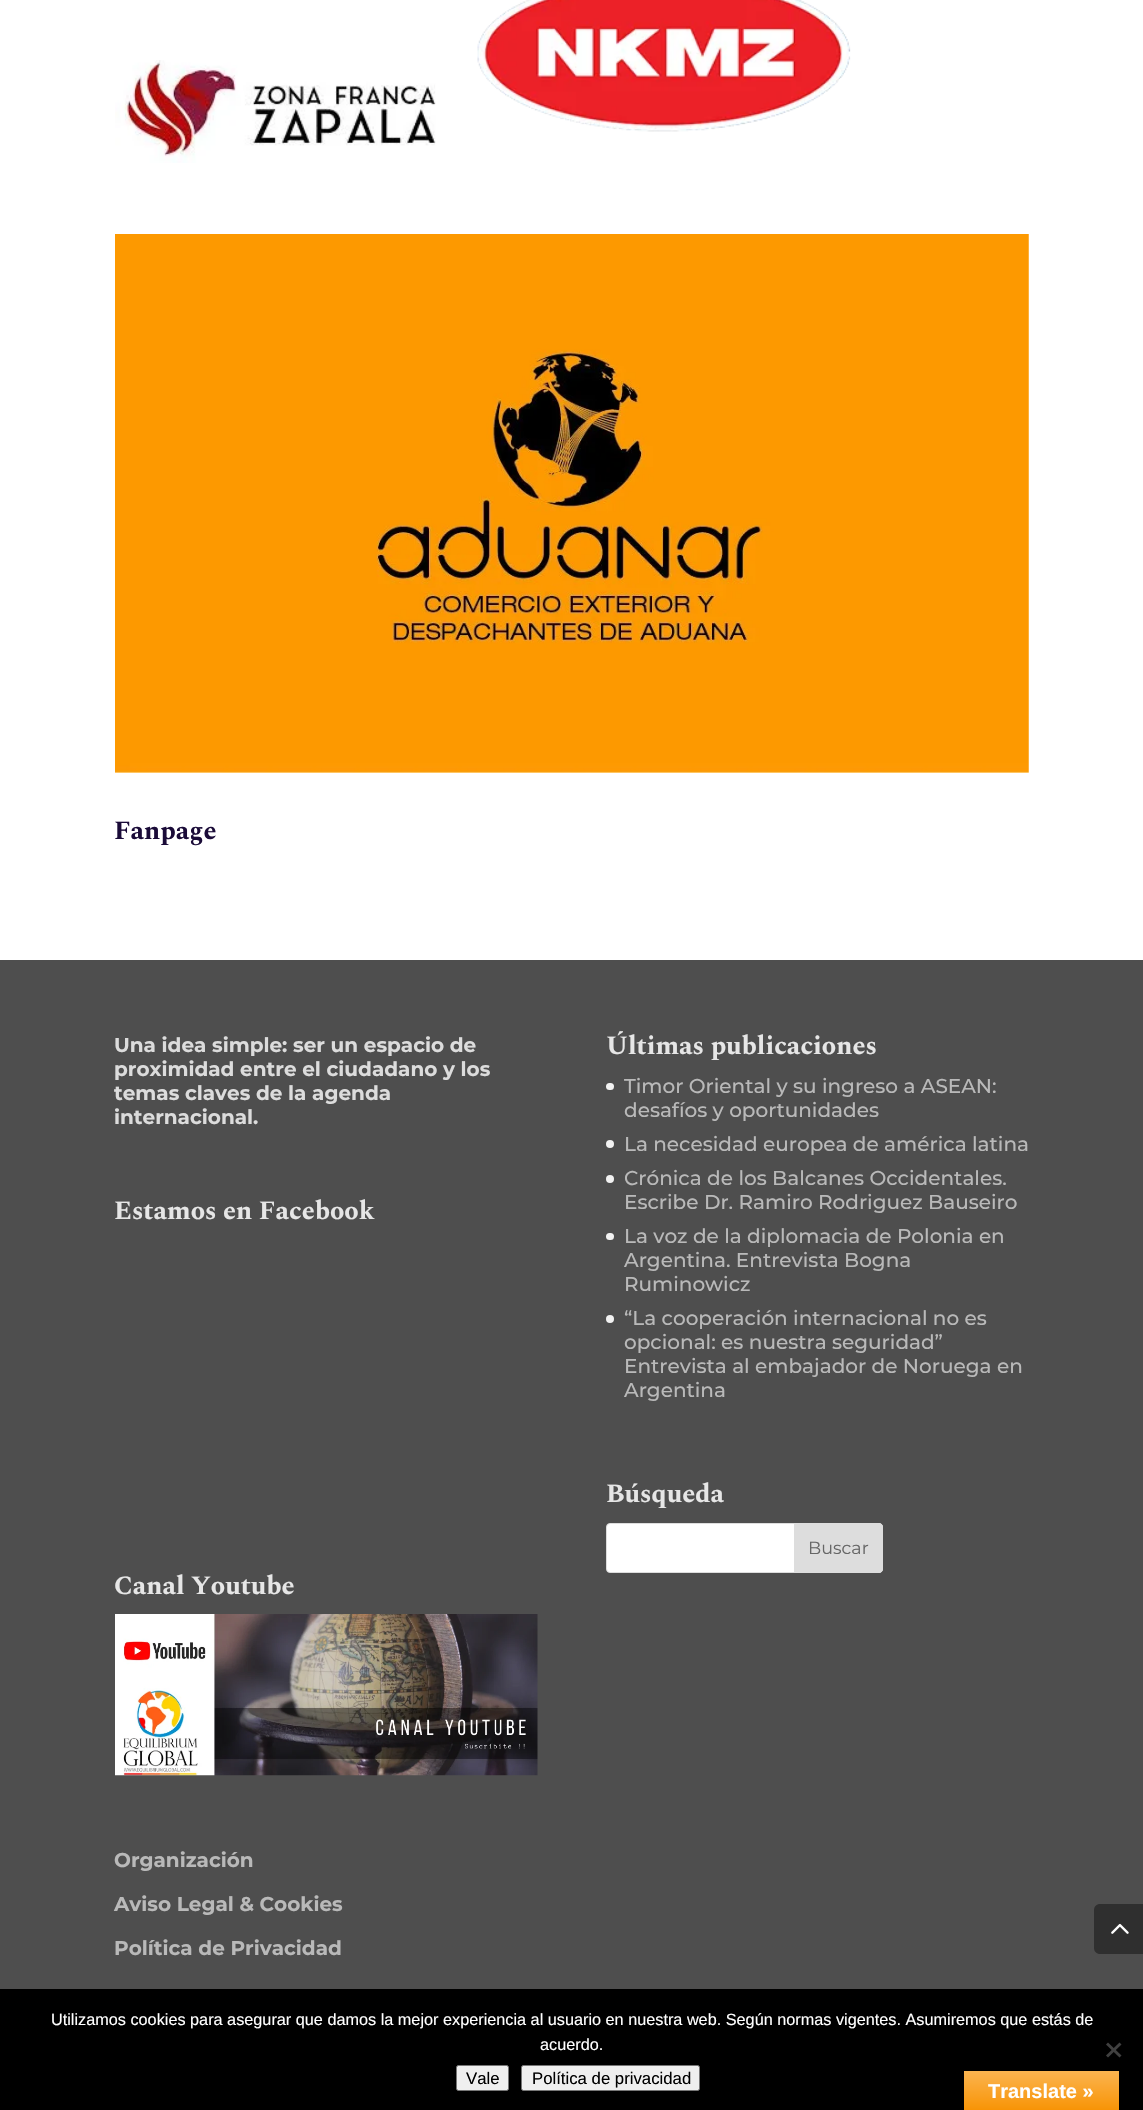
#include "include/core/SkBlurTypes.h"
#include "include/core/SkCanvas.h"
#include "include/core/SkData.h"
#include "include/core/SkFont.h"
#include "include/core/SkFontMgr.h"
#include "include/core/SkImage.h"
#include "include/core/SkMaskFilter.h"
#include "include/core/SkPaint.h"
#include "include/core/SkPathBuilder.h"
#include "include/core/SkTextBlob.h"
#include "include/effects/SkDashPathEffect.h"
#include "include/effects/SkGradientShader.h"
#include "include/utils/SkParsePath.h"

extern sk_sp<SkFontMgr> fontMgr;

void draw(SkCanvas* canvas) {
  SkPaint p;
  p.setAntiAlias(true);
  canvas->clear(SK_ColorWHITE);
  canvas->drawImageRect(SkImages::DeferredFromEncodedData(SkData::MakeFromFileName("images/1.png")), SkRect::MakeLTRB(115, 60, 436, 163), SkSamplingOptions());
  canvas->drawImageRect(SkImages::DeferredFromEncodedData(SkData::MakeFromFileName("images/2.png")), SkRect::MakeLTRB(477, 0, 851, 132), SkSamplingOptions());
  canvas->drawImageRect(SkImages::DeferredFromEncodedData(SkData::MakeFromFileName("images/3.png")), SkRect::MakeLTRB(115, 234, 1029, 773), SkSamplingOptions());
  p.setColor(SkColorSetRGB(78, 78, 78));
  canvas->drawRect(SkRect::MakeLTRB(0, 960, 1143, 1989), p);
  p.setColor(SkColorSetRGB(242, 242, 242));
  canvas->drawRoundRect(SkRect::MakeLTRB(606, 1083, 614, 1090), 3.5f, 3.5f, p);
  canvas->drawCircle(610, 1144, 4, p);
  canvas->drawCircle(610, 1179, 4, p);
  canvas->drawRoundRect(SkRect::MakeLTRB(606, 1233, 614, 1240), 3.5f, 3.5f, p);
  canvas->drawCircle(610, 1319, 4, p);
  p.setColor(SK_ColorWHITE);
  canvas->drawRoundRect(SkRect::MakeLTRB(606.5f, 1523.5f, 882.5f, 1572.5f), 3.5f, 3.5f, p);
  p.setStyle(SkPaint::kStroke_Style);
  p.setStrokeWidth(1);
  p.setColor(SkColorSetRGB(221, 221, 221));
  canvas->drawRoundRect(SkRect::MakeLTRB(606.5f, 1523.5f, 882.5f, 1572.5f), 3.5f, 3.5f, p);
  p.setStyle(SkPaint::kFill_Style);
  canvas->drawPath(SkPathBuilder().moveTo(794.5f, 1523.5f).lineTo(879, 1523.5f).cubicTo(881, 1523.5f, 882.5f, 1525, 882.5f, 1527).lineTo(882.5f, 1569).cubicTo(882.5f, 1571, 881, 1572.5f, 879, 1572.5f).lineTo(794.5f, 1572.5f).close().detach(), p);
  p.setStyle(SkPaint::kStroke_Style);
  canvas->drawPath(SkPathBuilder().moveTo(794.5f, 1523.5f).lineTo(879, 1523.5f).cubicTo(881, 1523.5f, 882.5f, 1525, 882.5f, 1527).lineTo(882.5f, 1569).cubicTo(882.5f, 1571, 881, 1572.5f, 879, 1572.5f).lineTo(794.5f, 1572.5f).close().detach(), p);
  canvas->drawImageRect(SkImages::DeferredFromEncodedData(SkData::MakeFromFileName("images/4.png")), SkRect::MakeLTRB(115, 1614, 538, 1776), SkSamplingOptions());
  p.setStyle(SkPaint::kFill_Style);
  p.setColor(SkColorSetRGB(47, 47, 47));
  canvas->drawPath(SkPathBuilder().moveTo(1100, 1904).lineTo(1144, 1904).lineTo(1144, 1954).lineTo(1100, 1954).cubicTo(1096.5f, 1954, 1094, 1951.5f, 1094, 1948).lineTo(1094, 1910).cubicTo(1094, 1906.5f, 1096.5f, 1904, 1100, 1904).close().detach(), p);
  canvas->drawImageRect(SkImages::DeferredFromEncodedData(SkData::MakeFromFileName("images/5.png")), SkRect::MakeLTRB(1111, 1923, 1129, 1934), SkSamplingOptions());
  p.setColor(SK_ColorBLACK);
  canvas->drawRect(SkRect::MakeLTRB(0, 1989, 1143, 2110), p);
  p.setColor(SkColorSetRGB(64, 64, 64));
  canvas->drawPath(SkPathBuilder().moveTo(1119.5f, 2042.5f).lineTo(1121.5f, 2044.5f).lineTo(1108, 2057.5f).lineTo(1106, 2055.5f).close().detach(), p);
  canvas->drawPath(SkPathBuilder().moveTo(1106, 2044.5f).lineTo(1108, 2042.5f).lineTo(1121.5f, 2055.5f).lineTo(1119.5f, 2057.5f).close().detach(), p);
  p.setColor(SkColorSetRGB(239, 239, 239));
  canvas->drawRoundRect(SkRect::MakeLTRB(456.5f, 2065.5f, 508.5f, 2090.5f), 2, 2, p);
  p.setStyle(SkPaint::kStroke_Style);
  p.setColor(SkColorSetRGB(118, 118, 118));
  canvas->drawRoundRect(SkRect::MakeLTRB(456.5f, 2065.5f, 508.5f, 2090.5f), 2, 2, p);
  p.setStyle(SkPaint::kFill_Style);
  p.setColor(SkColorSetRGB(239, 239, 239));
  canvas->drawRoundRect(SkRect::MakeLTRB(521.5f, 2065.5f, 699.5f, 2090.5f), 2, 2, p);
  p.setStyle(SkPaint::kStroke_Style);
  p.setColor(SkColorSetRGB(118, 118, 118));
  canvas->drawRoundRect(SkRect::MakeLTRB(521.5f, 2065.5f, 699.5f, 2090.5f), 2, 2, p);
  p.setStyle(SkPaint::kFill_Style);
  {
    const SkColor colors[] = {SkColorSetRGB(251, 180, 80), SkColorSetRGB(248, 148, 6)};
    const float stops[] = {0, 1};
    const SkPoint ends[] = {{1041, 2071}, {1041, 2110}};
    p.setShader(SkGradientShader::MakeLinear(ends, colors, stops, 2, SkTileMode::kClamp));
    p.setAlpha(255);
  }
  canvas->drawRect(SkRect::MakeLTRB(964, 2071, 1119, 2110), p);
  SkFont font1(fontMgr->matchFamilyStyle("Spectral", SkFontStyle::Bold()), 26.25f);
  font1.setSubpixel(true);
  p.setShader(nullptr);
  p.setColor(SkColorSetRGB(26, 11, 56));
  canvas->drawString("Fanpage", 114, 839, font1, p);
  SkFont font2(fontMgr->matchFamilyStyle("Montserrat", SkFontStyle::Bold()), 20);
  font2.setSubpixel(true);
  p.setColor(SkColorSetRGB(220, 220, 220));
  canvas->drawString("Una idea simple: ser un espacio de", 114, 1052, font2, p);
  canvas->drawString("proximidad entre el ciudadano y los", 114, 1076, font2, p);
  canvas->drawString("temas claves de la agenda", 114, 1100, font2, p);
  canvas->drawString("internacional.", 114, 1124, font2, p);
  p.setColor(SkColorSetRGB(230, 230, 230));
  canvas->drawString("Estamos en Facebook", 114, 1219, font1, p);
  canvas->drawString("Últimas publicaciones", 606, 1054, font1, p);
  SkFont font3(fontMgr->matchFamilyStyle("Montserrat", SkFontStyle(500, SkFontStyle::kNormal_Width, SkFontStyle::kUpright_Slant)), 20);
  font3.setSubpixel(true);
  p.setColor(SkColorSetRGB(185, 185, 185));
  canvas->drawString("Timor Oriental y su ingreso a ASEAN:", 624, 1093, font3, p);
  canvas->drawString("desafíos y oportunidades", 624, 1117, font3, p);
  canvas->drawString("La necesidad europea de américa latina", 624, 1151, font3, p);
  canvas->drawString("Crónica de los Balcanes Occidentales.", 624, 1185, font3, p);
  canvas->drawString("Escribe Dr. Ramiro Rodriguez Bauseiro", 624, 1209, font3, p);
  canvas->drawString("La voz de la diplomacia de Polonia en", 624, 1243, font3, p);
  canvas->drawString("Argentina. Entrevista Bogna", 624, 1267, font3, p);
  canvas->drawString("Ruminowicz", 624, 1291, font3, p);
  canvas->drawString("“La cooperación internacional no es", 624, 1325, font3, p);
  canvas->drawString("opcional: es nuestra seguridad”", 624, 1349, font3, p);
  canvas->drawString("Entrevista al embajador de Noruega en", 624, 1373, font3, p);
  canvas->drawString("Argentina", 624, 1397, font3, p);
  p.setColor(SkColorSetRGB(230, 230, 230));
  canvas->drawString("Búsqueda", 606, 1502, font1, p);
  SkFont font4(fontMgr->matchFamilyStyle("Montserrat", SkFontStyle::Normal()), 17.5f);
  font4.setSubpixel(true);
  p.setColor(SkColorSetRGB(102, 102, 102));
  canvas->drawString("Buscar", 808, 1554, font4, p);
  p.setColor(SkColorSetRGB(230, 230, 230));
  canvas->drawString("Canal Youtube", 114, 1594, font1, p);
  p.setColor(SkColorSetRGB(185, 185, 185));
  canvas->drawString("Organización", 114, 1867, font2, p);
  canvas->drawString("Aviso Legal & Cookies", 114, 1911, font2, p);
  canvas->drawString("Política de Privacidad", 114, 1955, font2, p);
  SkFont font5(fontMgr->matchFamilyStyle("Liberation Sans", SkFontStyle::Normal()), 16.25f);
  font5.setSubpixel(true);
  p.setColor(SK_ColorWHITE);
  canvas->drawString("Utilizamos cookies para asegurar que damos la mejor experiencia al usuario en nuestra web. Según normas vigentes. Asumiremos que estás de", 51, 2025, font5, p);
  canvas->drawString("acuerdo.", 540, 2050, font5, p);
  SkFont font6(fontMgr->matchFamilyStyle("Liberation Sans", SkFontStyle::Normal()), 16.75f);
  font6.setSubpixel(true);
  p.setColor(SK_ColorBLACK);
  canvas->drawString("Vale", 466, 2084, font6, p);
  canvas->drawString("Política de privacidad", 532, 2084, font6, p);
  SkFont font7(fontMgr->matchFamilyStyle("Liberation Sans", SkFontStyle::Bold()), 20);
  font7.setSubpixel(true);
  p.setColor(SK_ColorWHITE);
  canvas->drawString("Translate »", 988, 2098, font7, p);
}
